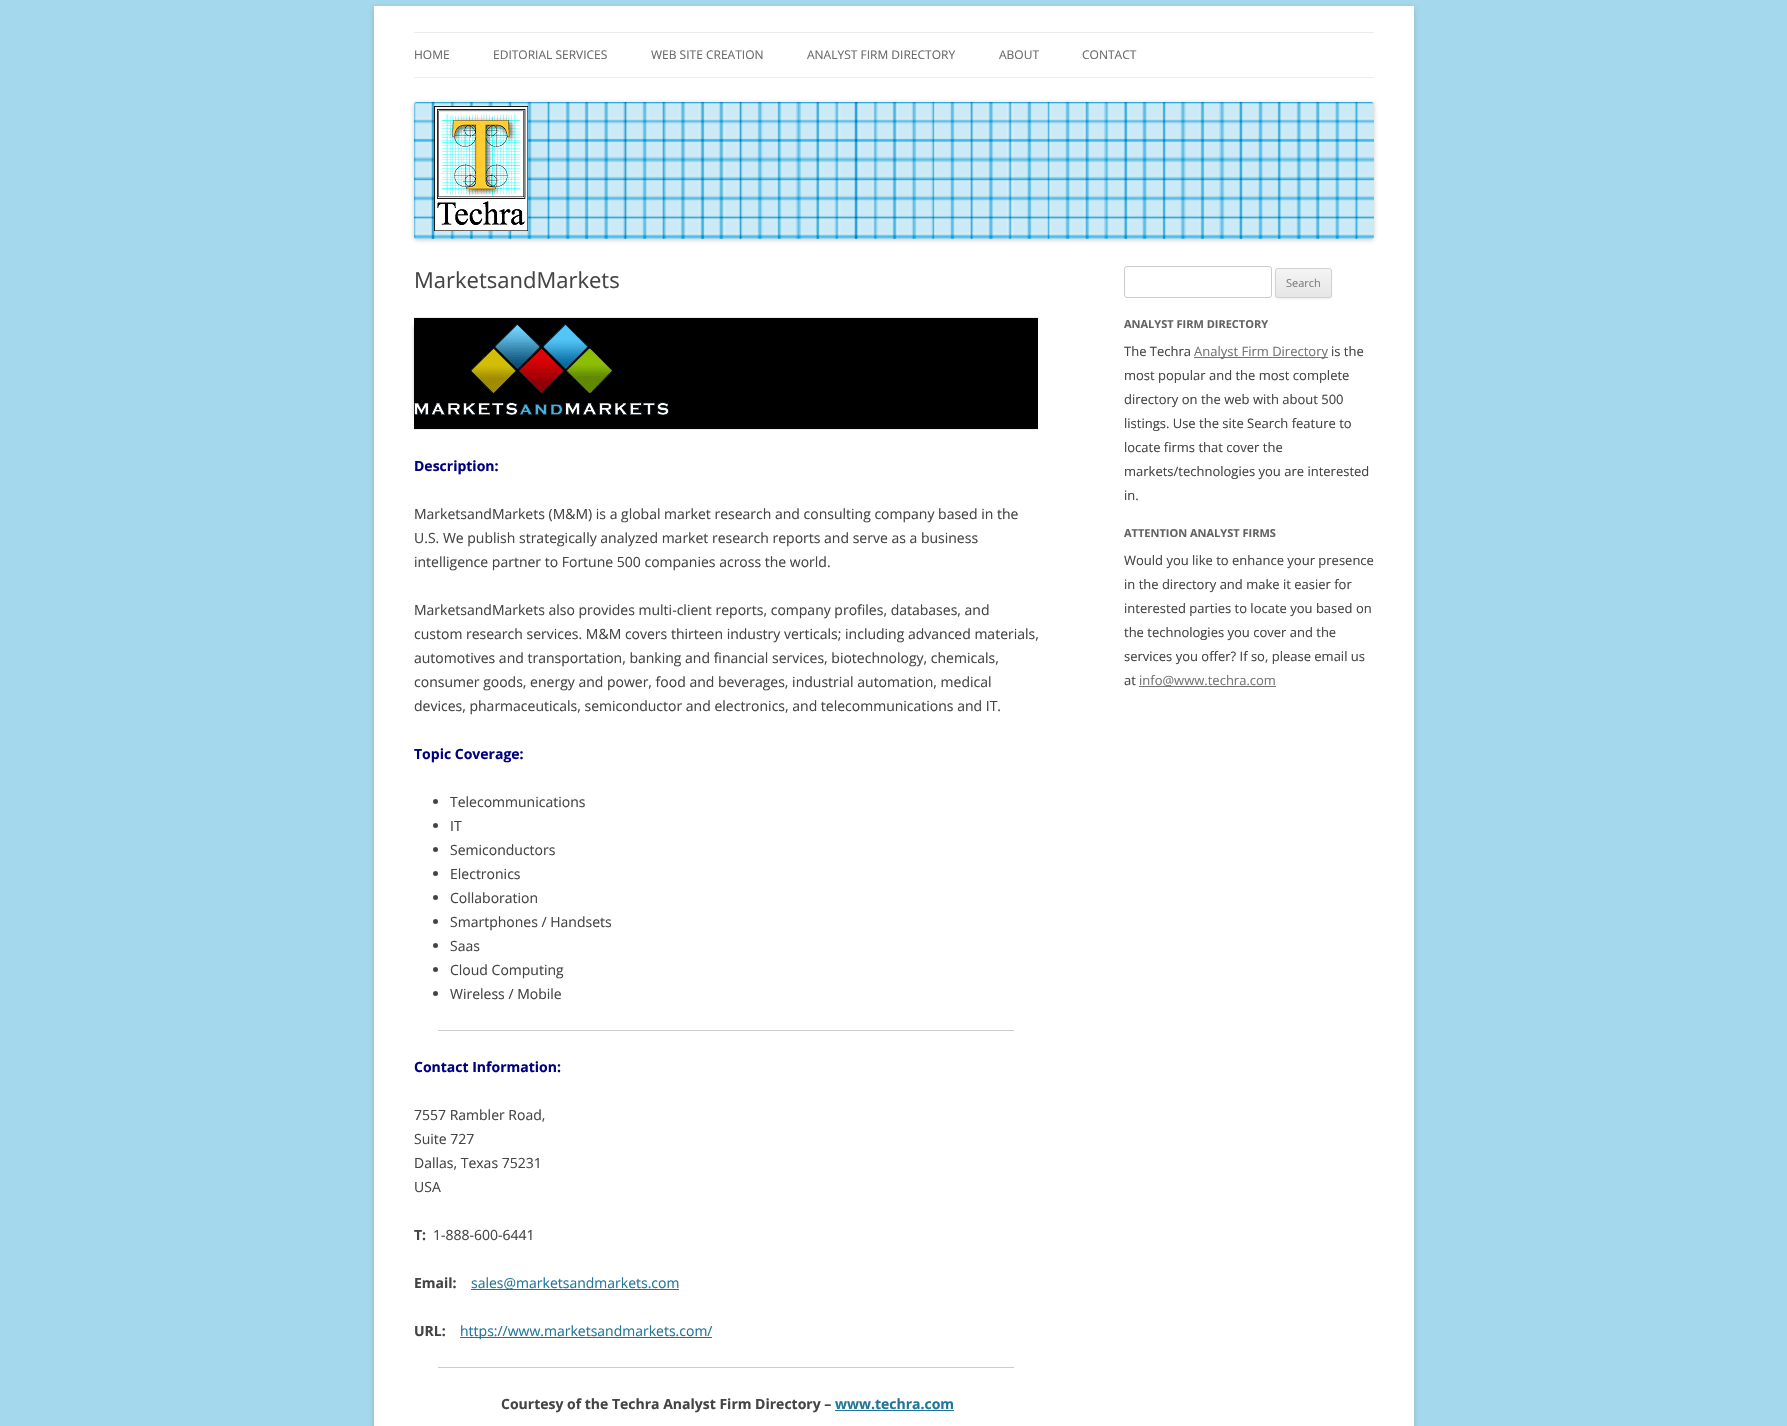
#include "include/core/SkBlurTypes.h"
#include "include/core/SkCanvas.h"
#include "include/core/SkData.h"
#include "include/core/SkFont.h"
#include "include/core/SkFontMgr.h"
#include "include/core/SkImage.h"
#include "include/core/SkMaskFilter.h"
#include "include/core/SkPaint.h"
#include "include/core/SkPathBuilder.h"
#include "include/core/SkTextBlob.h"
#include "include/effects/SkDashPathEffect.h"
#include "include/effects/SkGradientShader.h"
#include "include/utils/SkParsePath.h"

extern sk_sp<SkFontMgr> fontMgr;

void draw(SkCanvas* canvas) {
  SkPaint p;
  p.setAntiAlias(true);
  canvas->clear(SkColorSetRGB(164, 216, 237));
  p.setColor(SkColorSetARGB(77, 100, 100, 100));
  p.setMaskFilter(SkMaskFilter::MakeBlur(kNormal_SkBlurStyle, 3));
  canvas->drawRect(SkRect::MakeLTRB(374, 8, 1414, 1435), p);
  p.setMaskFilter(nullptr);
  p.setColor(SK_ColorWHITE);
  canvas->drawRect(SkRect::MakeLTRB(374, 6, 1414, 1426), p);
  p.setColor(SkColorSetRGB(237, 237, 237));
  canvas->drawRect(SkRect::MakeLTRB(414, 32, 1374, 33), p);
  canvas->drawRect(SkRect::MakeLTRB(414, 77, 1374, 78), p);
  p.setColor(SkColorSetARGB(51, 0, 0, 0));
  p.setMaskFilter(SkMaskFilter::MakeBlur(kNormal_SkBlurStyle, 2));
  canvas->drawRoundRect(SkRect::MakeLTRB(414, 103, 1374, 240), 3, 3, p);
  p.setMaskFilter(nullptr);
  canvas->drawImageRect(SkImages::DeferredFromEncodedData(SkData::MakeFromFileName("images/1.png")), SkRect::MakeLTRB(414, 102, 1374, 239), SkSamplingOptions());
  p.setColor(SK_ColorBLACK);
  canvas->drawRect(SkRect::MakeLTRB(414, 318, 1038, 429), p);
  p.setColor(SkColorSetRGB(237, 237, 237));
  canvas->drawRect(SkRect::MakeLTRB(414, 429, 1038, 430), p);
  canvas->drawRect(SkRect::MakeLTRB(413, 317, 1039, 318), p);
  canvas->save();
  canvas->clipPath(SkPathBuilder(SkPathFillType::kEvenOdd).moveTo(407, 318).lineTo(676, 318).lineTo(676, 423).lineTo(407, 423).close().moveTo(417, 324).lineTo(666, 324).cubicTo(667.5f, 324, 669, 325.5f, 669, 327).lineTo(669, 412).cubicTo(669, 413.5f, 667.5f, 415, 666, 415).lineTo(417, 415).cubicTo(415.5f, 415, 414, 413.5f, 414, 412).lineTo(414, 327).cubicTo(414, 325.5f, 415.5f, 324, 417, 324).close().detach(), true);
  p.setColor(SkColorSetARGB(51, 0, 0, 0));
  p.setMaskFilter(SkMaskFilter::MakeBlur(kNormal_SkBlurStyle, 2));
  canvas->drawRoundRect(SkRect::MakeLTRB(414, 325, 669, 416), 3, 3, p);
  p.setMaskFilter(nullptr);
  canvas->restore();
  canvas->drawImageRect(SkImages::DeferredFromEncodedData(SkData::MakeFromFileName("images/2.png")), SkRect::MakeLTRB(414, 324, 669, 415), SkSamplingOptions());
  p.setColor(SkColorSetRGB(68, 68, 68));
  canvas->drawCircle(435.5f, 801.5f, 2.5f, p);
  canvas->drawCircle(435.5f, 825.5f, 2.5f, p);
  canvas->drawCircle(435.5f, 849.5f, 2.5f, p);
  canvas->drawCircle(435.5f, 873.5f, 2.5f, p);
  canvas->drawCircle(435.5f, 897.5f, 2.5f, p);
  canvas->drawCircle(435.5f, 921.5f, 2.5f, p);
  canvas->drawCircle(435.5f, 945.5f, 2.5f, p);
  canvas->drawCircle(435.5f, 969.5f, 2.5f, p);
  canvas->drawCircle(435.5f, 993.5f, 2.5f, p);
  p.setColor(SkColorSetRGB(204, 204, 204));
  canvas->drawRect(SkRect::MakeLTRB(438, 1030, 1014, 1031), p);
  p.setColor(SkColorSetRGB(33, 117, 155));
  canvas->drawRect(SkRect::MakeLTRB(471, 1289, 679, 1290), p);
  canvas->drawRect(SkRect::MakeLTRB(460, 1337, 712, 1338), p);
  p.setColor(SkColorSetRGB(204, 204, 204));
  canvas->drawRect(SkRect::MakeLTRB(438, 1367, 1014, 1368), p);
  p.setColor(SkColorSetRGB(33, 117, 155));
  canvas->drawRect(SkRect::MakeLTRB(835, 1410, 954, 1411), p);
  p.setStyle(SkPaint::kStroke_Style);
  p.setStrokeWidth(1);
  p.setColor(SkColorSetRGB(204, 204, 204));
  canvas->drawRoundRect(SkRect::MakeLTRB(1124.5f, 266.5f, 1271.5f, 297.5f), 2.5f, 2.5f, p);
  p.setStyle(SkPaint::kFill_Style);
  p.setColor(SkColorSetARGB(26, 64, 64, 64));
  p.setMaskFilter(SkMaskFilter::MakeBlur(kNormal_SkBlurStyle, 1));
  canvas->drawRoundRect(SkRect::MakeLTRB(1275, 269, 1332, 299), 3, 3, p);
  p.setMaskFilter(nullptr);
  canvas->save();
  canvas->clipPath(SkPathBuilder().moveTo(1278, 268).lineTo(1329, 268).cubicTo(1330.5f, 268, 1332, 269.5f, 1332, 271).lineTo(1332, 295).cubicTo(1332, 296.5f, 1330.5f, 298, 1329, 298).lineTo(1278, 298).cubicTo(1276.5f, 298, 1275, 296.5f, 1275, 295).lineTo(1275, 271).cubicTo(1275, 269.5f, 1276.5f, 268, 1278, 268).close().detach(), true);
  {
    const SkColor colors[] = {SkColorSetRGB(244, 244, 244), SkColorSetRGB(230, 230, 230)};
    const float stops[] = {0, 1};
    const SkPoint ends[] = {{1304, 269}, {1304, 297}};
    p.setShader(SkGradientShader::MakeLinear(ends, colors, stops, 2, SkTileMode::kClamp));
    p.setAlpha(255);
  }
  canvas->drawRect(SkRect::MakeLTRB(1275, 269, 1332, 297), p);
  canvas->restore();
  p.setStyle(SkPaint::kStroke_Style);
  p.setShader(nullptr);
  p.setColor(SkColorSetRGB(210, 210, 210));
  canvas->drawRoundRect(SkRect::MakeLTRB(1275.5f, 268.5f, 1331.5f, 297.5f), 2.5f, 2.5f, p);
  p.setStyle(SkPaint::kFill_Style);
  p.setColor(SkColorSetRGB(117, 117, 117));
  canvas->drawRect(SkRect::MakeLTRB(1194, 357, 1328, 358), p);
  canvas->drawRect(SkRect::MakeLTRB(1139, 686, 1276, 687), p);
  SkFont font1(fontMgr->matchFamilyStyle("Open Sans", SkFontStyle::Normal()), 12);
  font1.setSubpixel(true);
  p.setColor(SkColorSetRGB(106, 106, 106));
  canvas->drawString("HOME", 414, 59, font1, p);
  canvas->drawString("EDITORIAL SERVICES", 493, 59, font1, p);
  canvas->drawString("WEB SITE CREATION", 651, 59, font1, p);
  canvas->drawString("ANALYST FIRM DIRECTORY", 807, 59, font1, p);
  canvas->drawString("ABOUT", 999, 59, font1, p);
  canvas->drawString("CONTACT", 1082, 59, font1, p);
  SkFont font2(fontMgr->matchFamilyStyle("Open Sans", SkFontStyle::Normal()), 22);
  font2.setSubpixel(true);
  p.setColor(SkColorSetRGB(68, 68, 68));
  canvas->drawString("MarketsandMarkets", 414, 288, font2, p);
  SkFont font3(fontMgr->matchFamilyStyle("Open Sans", SkFontStyle::Bold()), 14);
  font3.setSubpixel(true);
  p.setColor(SkColorSetRGB(0, 0, 128));
  canvas->drawString("Description:", 414, 471, font3, p);
  SkFont font4(fontMgr->matchFamilyStyle("Open Sans", SkFontStyle::Normal()), 14);
  font4.setSubpixel(true);
  p.setColor(SkColorSetRGB(68, 68, 68));
  canvas->drawString("MarketsandMarkets (M&M) is a global market research and consulting company based in the", 414, 519, font4, p);
  canvas->drawString("U.S. We publish strategically analyzed market research reports and serve as a business", 414, 543, font4, p);
  canvas->drawString("intelligence partner to Fortune 500 companies across the world.", 414, 567, font4, p);
  canvas->drawString("MarketsandMarkets also provides multi-client reports, company profiles, databases, and", 414, 615, font4, p);
  canvas->drawString("custom research services. M&M covers thirteen industry verticals; including advanced materials,", 414, 639, font4, p);
  canvas->drawString("automotives and transportation, banking and financial services, biotechnology, chemicals,", 414, 663, font4, p);
  canvas->drawString("consumer goods, energy and power, food and beverages, industrial automation, medical", 414, 687, font4, p);
  canvas->drawString("devices, pharmaceuticals, semiconductor and electronics, and telecommunications and IT.", 414, 711, font4, p);
  p.setColor(SkColorSetRGB(0, 0, 128));
  canvas->drawString("Topic Coverage:", 414, 759, font3, p);
  p.setColor(SkColorSetRGB(68, 68, 68));
  canvas->drawString("Telecommunications", 450, 807, font4, p);
  canvas->drawString("IT", 450, 831, font4, p);
  canvas->drawString("Semiconductors", 450, 855, font4, p);
  canvas->drawString("Electronics", 450, 879, font4, p);
  canvas->drawString("Collaboration", 450, 903, font4, p);
  canvas->drawString("Smartphones / Handsets", 450, 927, font4, p);
  canvas->drawString("Saas", 450, 951, font4, p);
  canvas->drawString("Cloud Computing", 450, 975, font4, p);
  canvas->drawString("Wireless / Mobile", 450, 999, font4, p);
  p.setColor(SkColorSetRGB(0, 0, 128));
  canvas->drawString("Contact Information:", 414, 1072, font3, p);
  p.setColor(SkColorSetRGB(68, 68, 68));
  canvas->drawString("7557 Rambler Road,", 414, 1120, font4, p);
  canvas->drawString("Suite 727", 414, 1144, font4, p);
  canvas->drawString("Dallas, Texas 75231", 414, 1168, font4, p);
  canvas->drawString("USA", 414, 1192, font4, p);
  canvas->drawString("T:", 414, 1240, font3, p);
  canvas->drawString("1-888-600-6441", 433, 1240, font4, p);
  canvas->drawString("Email:", 414, 1288, font3, p);
  p.setColor(SkColorSetRGB(33, 117, 155));
  canvas->drawString("sales@marketsandmarkets.com", 471, 1288, font4, p);
  p.setColor(SkColorSetRGB(68, 68, 68));
  canvas->drawString("URL:", 414, 1336, font3, p);
  p.setColor(SkColorSetRGB(33, 117, 155));
  canvas->drawString("https://www.marketsandmarkets.com/", 460, 1336, font4, p);
  p.setColor(SkColorSetRGB(68, 68, 68));
  canvas->drawString("Courtesy of the Techra Analyst Firm Directory –", 501, 1409, font3, p);
  p.setColor(SkColorSetRGB(33, 117, 155));
  canvas->drawString("www.techra.com", 835, 1409, font3, p);
  SkFont font5(fontMgr->matchFamilyStyle("Open Sans", SkFontStyle::Normal()), 11);
  font5.setSubpixel(true);
  p.setColor(SkColorSetRGB(124, 124, 124));
  canvas->drawString("Search", 1286, 287, font5, p);
  SkFont font6(fontMgr->matchFamilyStyle("Open Sans", SkFontStyle::Bold()), 11);
  font6.setSubpixel(true);
  p.setColor(SkColorSetRGB(99, 99, 99));
  canvas->drawString("ANALYST FIRM DIRECTORY", 1124, 328, font6, p);
  SkFont font7(fontMgr->matchFamilyStyle("Open Sans", SkFontStyle::Normal()), 13);
  font7.setSubpixel(true);
  p.setColor(SkColorSetRGB(68, 68, 68));
  canvas->drawString("The Techra", 1124, 356, font7, p);
  p.setColor(SkColorSetRGB(117, 117, 117));
  canvas->drawString("Analyst Firm Directory", 1194, 356, font7, p);
  p.setColor(SkColorSetRGB(68, 68, 68));
  canvas->drawString("is the", 1331, 356, font7, p);
  canvas->drawString("most popular and the most complete", 1124, 380, font7, p);
  canvas->drawString("directory on the web with about 500", 1124, 404, font7, p);
  canvas->drawString("listings. Use the site Search feature to", 1124, 428, font7, p);
  canvas->drawString("locate firms that cover the", 1124, 452, font7, p);
  canvas->drawString("markets/technologies you are interested", 1124, 476, font7, p);
  canvas->drawString("in.", 1124, 500, font7, p);
  p.setColor(SkColorSetRGB(99, 99, 99));
  canvas->drawString("ATTENTION ANALYST FIRMS", 1124, 537, font6, p);
  p.setColor(SkColorSetRGB(68, 68, 68));
  canvas->drawString("Would you like to enhance your presence", 1124, 565, font7, p);
  canvas->drawString("in the directory and make it easier for", 1124, 589, font7, p);
  canvas->drawString("interested parties to locate you based on", 1124, 613, font7, p);
  canvas->drawString("the technologies you cover and the", 1124, 637, font7, p);
  canvas->drawString("services you offer? If so, please email us", 1124, 661, font7, p);
  canvas->drawString("at", 1124, 685, font7, p);
  p.setColor(SkColorSetRGB(117, 117, 117));
  canvas->drawString("info@www.techra.com", 1139, 685, font7, p);
}
